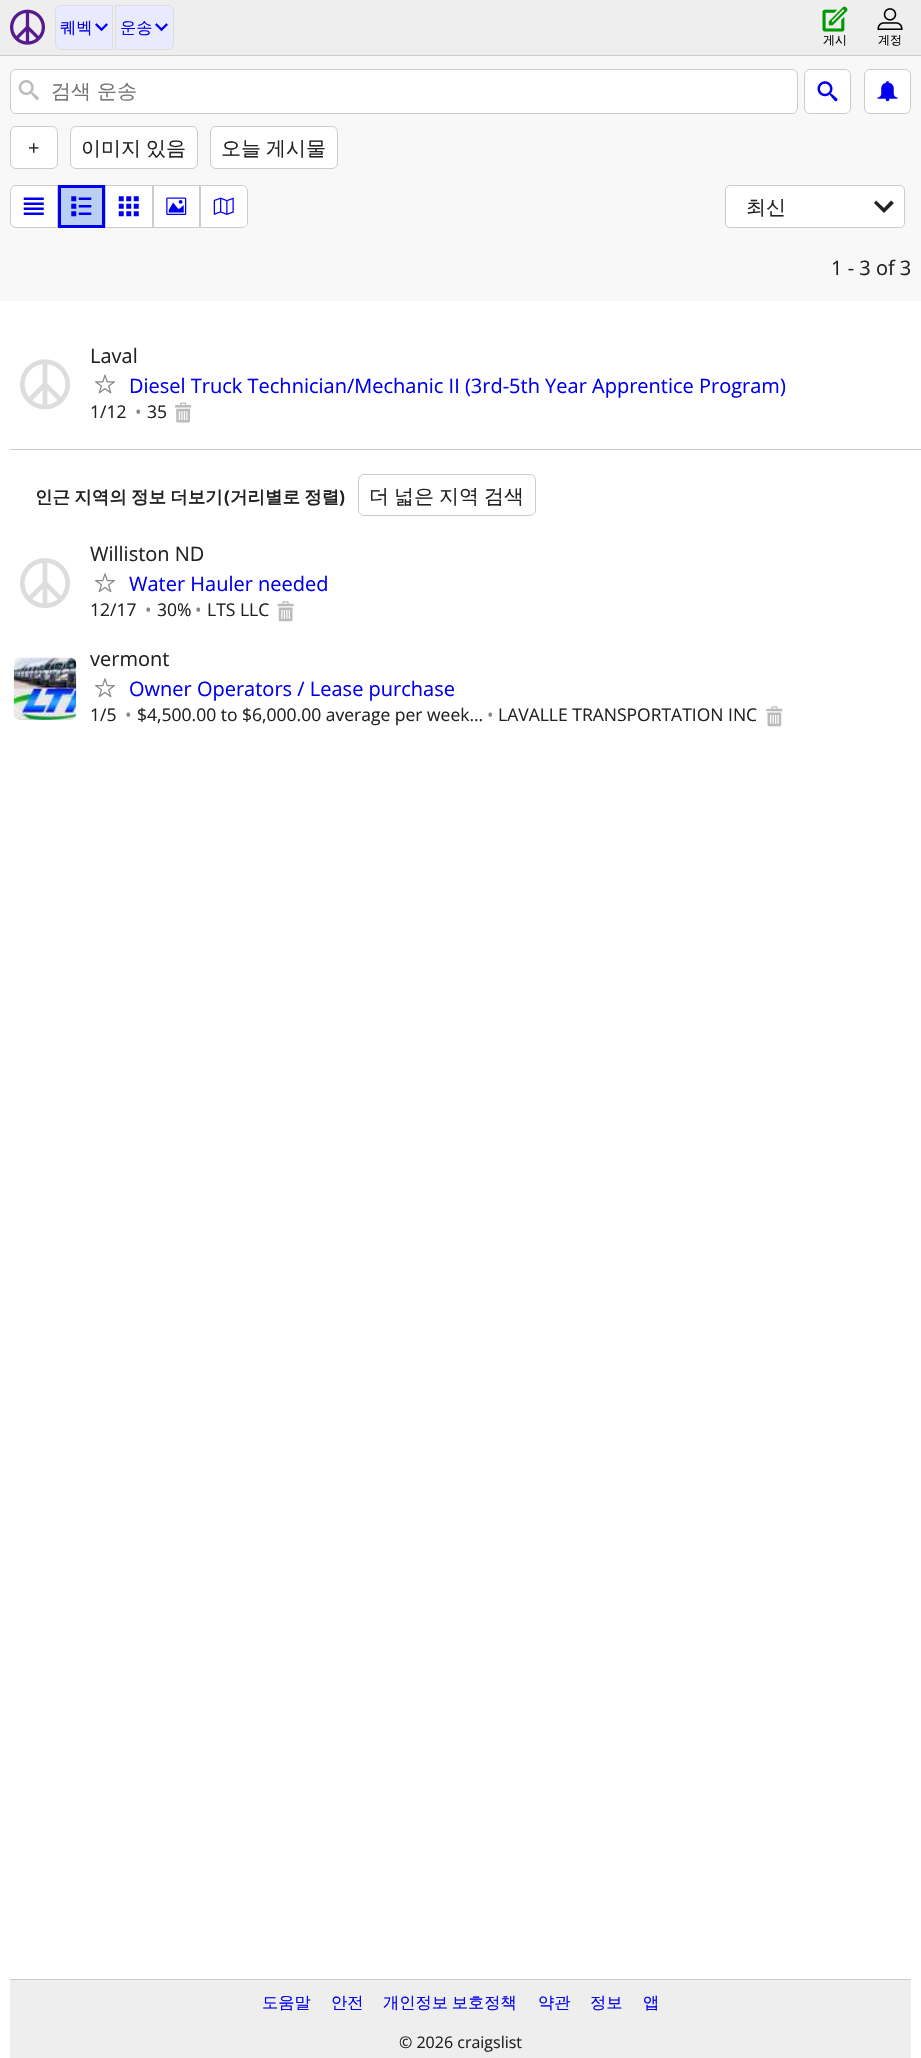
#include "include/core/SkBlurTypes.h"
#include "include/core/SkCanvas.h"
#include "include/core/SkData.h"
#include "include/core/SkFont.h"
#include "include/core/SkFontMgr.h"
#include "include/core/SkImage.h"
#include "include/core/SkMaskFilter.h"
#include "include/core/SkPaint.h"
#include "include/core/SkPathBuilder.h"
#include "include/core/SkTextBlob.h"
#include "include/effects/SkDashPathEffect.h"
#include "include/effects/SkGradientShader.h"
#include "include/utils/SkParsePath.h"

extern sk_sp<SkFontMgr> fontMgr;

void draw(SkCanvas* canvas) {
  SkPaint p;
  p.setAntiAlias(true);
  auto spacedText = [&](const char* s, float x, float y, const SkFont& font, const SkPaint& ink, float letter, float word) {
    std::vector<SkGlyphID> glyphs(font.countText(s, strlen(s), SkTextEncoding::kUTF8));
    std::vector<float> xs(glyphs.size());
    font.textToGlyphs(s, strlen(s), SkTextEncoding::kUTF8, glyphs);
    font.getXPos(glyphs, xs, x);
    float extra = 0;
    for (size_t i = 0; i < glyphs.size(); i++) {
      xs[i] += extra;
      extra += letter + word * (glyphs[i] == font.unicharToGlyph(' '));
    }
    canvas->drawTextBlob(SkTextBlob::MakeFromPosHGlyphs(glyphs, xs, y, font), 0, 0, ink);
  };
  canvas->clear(SK_ColorWHITE);
  p.setColor(SkColorSetRGB(238, 238, 238));
  canvas->drawRect(SkRect::MakeLTRB(0, 0, 921, 55), p);
  p.setColor(SkColorSetRGB(204, 204, 204));
  canvas->drawRect(SkRect::MakeLTRB(0, 55, 921, 56), p);
  canvas->drawImageRect(SkImages::DeferredFromEncodedData(SkData::MakeFromFileName("images/1.png")), SkRect::MakeLTRB(10, 9, 45, 45), SkSamplingOptions());
  p.setColor(SkColorSetRGB(234, 234, 255));
  canvas->drawPath(SkPathBuilder().moveTo(61, 5.5f).lineTo(112.5f, 5.5f).lineTo(112.5f, 49.5f).lineTo(61, 49.5f).cubicTo(58, 49.5f, 55.5f, 47, 55.5f, 44).lineTo(55.5f, 11).cubicTo(55.5f, 8, 58, 5.5f, 61, 5.5f).close().detach(), p);
  p.setStyle(SkPaint::kStroke_Style);
  p.setStrokeWidth(1);
  p.setColor(SkColorSetRGB(221, 221, 221));
  canvas->drawPath(SkPathBuilder().moveTo(61, 5.5f).lineTo(112.5f, 5.5f).lineTo(112.5f, 49.5f).lineTo(61, 49.5f).cubicTo(58, 49.5f, 55.5f, 47, 55.5f, 44).lineTo(55.5f, 11).cubicTo(55.5f, 8, 58, 5.5f, 61, 5.5f).close().detach(), p);
  canvas->drawImageRect(SkImages::DeferredFromEncodedData(SkData::MakeFromFileName("images/2.png")), SkRect::MakeLTRB(95, 23, 108, 32), SkSamplingOptions());
  p.setStyle(SkPaint::kFill_Style);
  p.setColor(SkColorSetRGB(234, 234, 255));
  canvas->drawPath(SkPathBuilder().moveTo(115.5f, 5.5f).lineTo(168, 5.5f).cubicTo(171, 5.5f, 173.5f, 8, 173.5f, 11).lineTo(173.5f, 44).cubicTo(173.5f, 47, 171, 49.5f, 168, 49.5f).lineTo(115.5f, 49.5f).close().detach(), p);
  p.setStyle(SkPaint::kStroke_Style);
  p.setColor(SkColorSetRGB(221, 221, 221));
  canvas->drawPath(SkPathBuilder().moveTo(115.5f, 5.5f).lineTo(168, 5.5f).cubicTo(171, 5.5f, 173.5f, 8, 173.5f, 11).lineTo(173.5f, 44).cubicTo(173.5f, 47, 171, 49.5f, 168, 49.5f).lineTo(115.5f, 49.5f).close().detach(), p);
  canvas->drawImageRect(SkImages::DeferredFromEncodedData(SkData::MakeFromFileName("images/2.png")), SkRect::MakeLTRB(155, 23, 168, 32), SkSamplingOptions());
  canvas->drawImageRect(SkImages::DeferredFromEncodedData(SkData::MakeFromFileName("images/3.png")), SkRect::MakeLTRB(822, 6, 848, 32), SkSamplingOptions());
  canvas->drawImageRect(SkImages::DeferredFromEncodedData(SkData::MakeFromFileName("images/4.png")), SkRect::MakeLTRB(877, 8, 903, 30), SkSamplingOptions());
  p.setStyle(SkPaint::kFill_Style);
  p.setColor(SkColorSetRGB(248, 248, 248));
  canvas->drawRect(SkRect::MakeLTRB(0, 56, 921, 301), p);
  p.setColor(SK_ColorWHITE);
  canvas->drawRoundRect(SkRect::MakeLTRB(10.5f, 69.5f, 797.5f, 113.5f), 5.5f, 5.5f, p);
  p.setStyle(SkPaint::kStroke_Style);
  p.setColor(SkColorSetRGB(204, 204, 204));
  canvas->drawRoundRect(SkRect::MakeLTRB(10.5f, 69.5f, 797.5f, 113.5f), 5.5f, 5.5f, p);
  canvas->drawImageRect(SkImages::DeferredFromEncodedData(SkData::MakeFromFileName("images/5.png")), SkRect::MakeLTRB(18, 80, 39, 100), SkSamplingOptions());
  p.setStyle(SkPaint::kFill_Style);
  p.setColor(SK_ColorWHITE);
  canvas->drawRoundRect(SkRect::MakeLTRB(804.5f, 69.5f, 850.5f, 113.5f), 5.5f, 5.5f, p);
  p.setStyle(SkPaint::kStroke_Style);
  p.setColor(SkColorSetRGB(204, 204, 204));
  canvas->drawRoundRect(SkRect::MakeLTRB(804.5f, 69.5f, 850.5f, 113.5f), 5.5f, 5.5f, p);
  canvas->drawImageRect(SkImages::DeferredFromEncodedData(SkData::MakeFromFileName("images/6.png")), SkRect::MakeLTRB(817, 81, 838, 102), SkSamplingOptions());
  p.setStyle(SkPaint::kFill_Style);
  p.setColor(SK_ColorWHITE);
  canvas->drawRoundRect(SkRect::MakeLTRB(864.5f, 69.5f, 910.5f, 113.5f), 5.5f, 5.5f, p);
  p.setStyle(SkPaint::kStroke_Style);
  p.setColor(SkColorSetRGB(204, 204, 204));
  canvas->drawRoundRect(SkRect::MakeLTRB(864.5f, 69.5f, 910.5f, 113.5f), 5.5f, 5.5f, p);
  canvas->drawImageRect(SkImages::DeferredFromEncodedData(SkData::MakeFromFileName("images/7.png")), SkRect::MakeLTRB(877, 81, 898, 102), SkSamplingOptions());
  p.setStyle(SkPaint::kFill_Style);
  p.setColor(SK_ColorWHITE);
  canvas->drawRoundRect(SkRect::MakeLTRB(10.5f, 126.5f, 57.5f, 168.5f), 5.5f, 5.5f, p);
  p.setStyle(SkPaint::kStroke_Style);
  p.setColor(SkColorSetRGB(204, 204, 204));
  canvas->drawRoundRect(SkRect::MakeLTRB(10.5f, 126.5f, 57.5f, 168.5f), 5.5f, 5.5f, p);
  p.setStyle(SkPaint::kFill_Style);
  p.setColor(SK_ColorWHITE);
  canvas->drawRoundRect(SkRect::MakeLTRB(70.5f, 126.5f, 197.5f, 168.5f), 5.5f, 5.5f, p);
  p.setStyle(SkPaint::kStroke_Style);
  p.setColor(SkColorSetRGB(204, 204, 204));
  canvas->drawRoundRect(SkRect::MakeLTRB(70.5f, 126.5f, 197.5f, 168.5f), 5.5f, 5.5f, p);
  p.setStyle(SkPaint::kFill_Style);
  p.setColor(SK_ColorWHITE);
  canvas->drawRoundRect(SkRect::MakeLTRB(210.5f, 126.5f, 337.5f, 168.5f), 5.5f, 5.5f, p);
  p.setStyle(SkPaint::kStroke_Style);
  p.setColor(SkColorSetRGB(204, 204, 204));
  canvas->drawRoundRect(SkRect::MakeLTRB(210.5f, 126.5f, 337.5f, 168.5f), 5.5f, 5.5f, p);
  p.setStyle(SkPaint::kFill_Style);
  p.setColor(SK_ColorWHITE);
  canvas->drawPath(SkPathBuilder().moveTo(16, 185.5f).lineTo(57.5f, 185.5f).lineTo(57.5f, 227.5f).lineTo(16, 227.5f).cubicTo(13, 227.5f, 10.5f, 225, 10.5f, 222).lineTo(10.5f, 191).cubicTo(10.5f, 188, 13, 185.5f, 16, 185.5f).close().detach(), p);
  p.setStyle(SkPaint::kStroke_Style);
  p.setColor(SkColorSetRGB(204, 204, 204));
  canvas->drawPath(SkPathBuilder().moveTo(16, 185.5f).lineTo(57.5f, 185.5f).lineTo(57.5f, 227.5f).lineTo(16, 227.5f).cubicTo(13, 227.5f, 10.5f, 225, 10.5f, 222).lineTo(10.5f, 191).cubicTo(10.5f, 188, 13, 185.5f, 16, 185.5f).close().detach(), p);
  canvas->drawImageRect(SkImages::DeferredFromEncodedData(SkData::MakeFromFileName("images/8.png")), SkRect::MakeLTRB(23, 197, 44, 215), SkSamplingOptions());
  p.setStyle(SkPaint::kFill_Style);
  p.setColor(SkColorSetRGB(186, 207, 242));
  canvas->drawRect(SkRect::MakeLTRB(59.5f, 186.5f, 103.5f, 226.5f), p);
  p.setStyle(SkPaint::kStroke_Style);
  p.setStrokeWidth(3);
  p.setColor(SkColorSetRGB(0, 0, 238));
  canvas->drawRect(SkRect::MakeLTRB(59.5f, 186.5f, 103.5f, 226.5f), p);
  canvas->drawImageRect(SkImages::DeferredFromEncodedData(SkData::MakeFromFileName("images/9.png")), SkRect::MakeLTRB(71, 196, 92, 217), SkSamplingOptions());
  p.setStyle(SkPaint::kFill_Style);
  p.setColor(SK_ColorWHITE);
  canvas->drawRect(SkRect::MakeLTRB(105.5f, 185.5f, 152.5f, 227.5f), p);
  p.setStyle(SkPaint::kStroke_Style);
  p.setStrokeWidth(1);
  p.setColor(SkColorSetRGB(204, 204, 204));
  canvas->drawRect(SkRect::MakeLTRB(105.5f, 185.5f, 152.5f, 227.5f), p);
  canvas->drawImageRect(SkImages::DeferredFromEncodedData(SkData::MakeFromFileName("images/10.png")), SkRect::MakeLTRB(118, 196, 139, 217), SkSamplingOptions());
  p.setStyle(SkPaint::kFill_Style);
  p.setColor(SK_ColorWHITE);
  canvas->drawRect(SkRect::MakeLTRB(153.5f, 185.5f, 199.5f, 227.5f), p);
  p.setStyle(SkPaint::kStroke_Style);
  p.setColor(SkColorSetRGB(204, 204, 204));
  canvas->drawRect(SkRect::MakeLTRB(153.5f, 185.5f, 199.5f, 227.5f), p);
  canvas->drawImageRect(SkImages::DeferredFromEncodedData(SkData::MakeFromFileName("images/11.png")), SkRect::MakeLTRB(166, 197, 187, 215), SkSamplingOptions());
  p.setStyle(SkPaint::kFill_Style);
  p.setColor(SK_ColorWHITE);
  canvas->drawPath(SkPathBuilder().moveTo(200.5f, 185.5f).lineTo(242, 185.5f).cubicTo(245, 185.5f, 247.5f, 188, 247.5f, 191).lineTo(247.5f, 222).cubicTo(247.5f, 225, 245, 227.5f, 242, 227.5f).lineTo(200.5f, 227.5f).close().detach(), p);
  p.setStyle(SkPaint::kStroke_Style);
  p.setColor(SkColorSetRGB(204, 204, 204));
  canvas->drawPath(SkPathBuilder().moveTo(200.5f, 185.5f).lineTo(242, 185.5f).cubicTo(245, 185.5f, 247.5f, 188, 247.5f, 191).lineTo(247.5f, 222).cubicTo(247.5f, 225, 245, 227.5f, 242, 227.5f).lineTo(200.5f, 227.5f).close().detach(), p);
  canvas->drawImageRect(SkImages::DeferredFromEncodedData(SkData::MakeFromFileName("images/12.png")), SkRect::MakeLTRB(213, 197, 234, 215), SkSamplingOptions());
  p.setStyle(SkPaint::kFill_Style);
  p.setColor(SK_ColorWHITE);
  canvas->drawRoundRect(SkRect::MakeLTRB(725.5f, 185.5f, 904.5f, 227.5f), 4.5f, 4.5f, p);
  p.setStyle(SkPaint::kStroke_Style);
  p.setColor(SkColorSetRGB(204, 204, 204));
  canvas->drawRoundRect(SkRect::MakeLTRB(725.5f, 185.5f, 904.5f, 227.5f), 4.5f, 4.5f, p);
  p.setStyle(SkPaint::kFill_Style);
  p.setColor(SkColorSetRGB(34, 34, 34));
  canvas->drawPath(SkPathBuilder().moveTo(894, 203).lineTo(891, 200.5f).lineTo(884, 208).lineTo(876, 200.5f).lineTo(874, 203).lineTo(884, 213).close().detach(), p);
  canvas->drawImageRect(SkImages::DeferredFromEncodedData(SkData::MakeFromFileName("images/13.png")), SkRect::MakeLTRB(20, 359, 70, 410), SkSamplingOptions());
  canvas->drawImageRect(SkImages::DeferredFromEncodedData(SkData::MakeFromFileName("images/14.png")), SkRect::MakeLTRB(95, 374, 115, 394), SkSamplingOptions());
  canvas->drawImageRect(SkImages::DeferredFromEncodedData(SkData::MakeFromFileName("images/15.png")), SkRect::MakeLTRB(175, 402, 192, 423), SkSamplingOptions());
  p.setColor(SkColorSetRGB(204, 204, 204));
  canvas->drawRect(SkRect::MakeLTRB(10, 449, 921, 450), p);
  p.setStyle(SkPaint::kStroke_Style);
  canvas->drawRoundRect(SkRect::MakeLTRB(358.5f, 474.5f, 535.5f, 515.5f), 5.5f, 5.5f, p);
  canvas->drawImageRect(SkImages::DeferredFromEncodedData(SkData::MakeFromFileName("images/16.png")), SkRect::MakeLTRB(20, 558, 70, 608), SkSamplingOptions());
  canvas->drawImageRect(SkImages::DeferredFromEncodedData(SkData::MakeFromFileName("images/17.png")), SkRect::MakeLTRB(95, 573, 115, 593), SkSamplingOptions());
  canvas->drawImageRect(SkImages::DeferredFromEncodedData(SkData::MakeFromFileName("images/18.png")), SkRect::MakeLTRB(277, 601, 294, 622), SkSamplingOptions());
  canvas->drawImageRect(SkImages::DeferredFromEncodedData(SkData::MakeFromFileName("images/19.png")), SkRect::MakeLTRB(13, 657, 77, 720), SkSamplingOptions());
  canvas->drawImageRect(SkImages::DeferredFromEncodedData(SkData::MakeFromFileName("images/17.png")), SkRect::MakeLTRB(95, 678, 115, 698), SkSamplingOptions());
  canvas->drawImageRect(SkImages::DeferredFromEncodedData(SkData::MakeFromFileName("images/20.png")), SkRect::MakeLTRB(766, 706, 783, 727), SkSamplingOptions());
  p.setStyle(SkPaint::kFill_Style);
  p.setColor(SkColorSetRGB(238, 238, 238));
  canvas->drawRect(SkRect::MakeLTRB(10, 1980, 911, 2058), p);
  p.setColor(SkColorSetRGB(204, 204, 204));
  canvas->drawRect(SkRect::MakeLTRB(10, 1979, 911, 1980), p);
  SkFont font1(fontMgr->matchFamilyStyle("WenQuanYi Zen Hei", SkFontStyle(500, SkFontStyle::kNormal_Width, SkFontStyle::kUpright_Slant)), 16.25f);
  font1.setSubpixel(true);
  p.setColor(SkColorSetRGB(0, 0, 238));
  canvas->drawString("퀘벡", 60, 33, font1, p);
  canvas->drawString("운송", 120, 33, font1, p);
  SkFont font2(fontMgr->matchFamilyStyle("WenQuanYi Zen Hei", SkFontStyle(500, SkFontStyle::kNormal_Width, SkFontStyle::kUpright_Slant)), 12);
  font2.setSubpixel(true);
  p.setColor(SK_ColorBLACK);
  canvas->drawString("게시", 823, 44, font2, p);
  canvas->drawString("계정", 878, 44, font2, p);
  SkFont font3(fontMgr->matchFamilyStyle("WenQuanYi Zen Hei", SkFontStyle(500, SkFontStyle::kNormal_Width, SkFontStyle::kUpright_Slant)), 20);
  font3.setSubpixel(true);
  p.setColor(SkColorSetRGB(117, 117, 117));
  canvas->drawString("검색 운송", 51, 98, font3, p);
  SkFont font4(fontMgr->matchFamilyStyle("Open Sans", SkFontStyle::Normal()), 20);
  font4.setSubpixel(true);
  p.setColor(SkColorSetRGB(34, 34, 34));
  canvas->drawString("+", 28, 155, font4, p);
  spacedText("이미지 있음", 81, 155, font3, p, 0, -1);
  spacedText("오늘 게시물", 221, 155, font3, p, 0, -1);
  canvas->drawString("최신", 746, 214, font3, p);
  canvas->drawString("1 - 3 of 3", 831, 275, font4, p);
  canvas->drawString("Laval", 90, 363, font4, p);
  p.setColor(SkColorSetRGB(0, 0, 238));
  canvas->drawString("Diesel Truck Technician/Mechanic II (3rd-5th Year Apprentice Program)", 129, 393, font4, p);
  SkFont font5(fontMgr->matchFamilyStyle("Open Sans", SkFontStyle::Normal()), 17.5f);
  font5.setSubpixel(true);
  p.setColor(SkColorSetRGB(34, 34, 34));
  canvas->drawString("1/12", 90, 418, font5, p);
  p.setColor(SkColorSetRGB(136, 136, 136));
  canvas->drawString("•", 135, 418, font5, p);
  p.setColor(SkColorSetRGB(34, 34, 34));
  canvas->drawString("35", 147, 418, font5, p);
  SkFont font6(fontMgr->matchFamilyStyle("WenQuanYi Zen Hei", SkFontStyle::Bold()), 17.5f);
  font6.setSubpixel(true);
  spacedText("인근 지역의 정보 더보기", 35, 503, font6, p, 0, -1);
  SkFont font7(fontMgr->matchFamilyStyle("Open Sans", SkFontStyle::Bold()), 17.5f);
  font7.setSubpixel(true);
  canvas->drawString("(", 224, 503, font7, p);
  spacedText("거리별로 정렬", 230, 503, font6, p, 0, -1);
  canvas->drawString(")", 339, 503, font7, p);
  spacedText("더 넓은 지역 검색", 369, 503, font3, p, 0, -1);
  canvas->drawString("Williston ND", 90, 561, font4, p);
  p.setColor(SkColorSetRGB(0, 0, 238));
  canvas->drawString("Water Hauler needed", 129, 591, font4, p);
  p.setColor(SkColorSetRGB(34, 34, 34));
  canvas->drawString("12/17", 90, 616, font5, p);
  p.setColor(SkColorSetRGB(136, 136, 136));
  canvas->drawString("•", 145, 616, font5, p);
  p.setColor(SkColorSetRGB(34, 34, 34));
  canvas->drawString("30%", 157, 616, font5, p);
  p.setColor(SkColorSetRGB(136, 136, 136));
  canvas->drawString("•", 195, 616, font5, p);
  p.setColor(SkColorSetRGB(34, 34, 34));
  canvas->drawString("LTS LLC", 207, 616, font5, p);
  canvas->drawString("vermont", 90, 666, font4, p);
  p.setColor(SkColorSetRGB(0, 0, 238));
  canvas->drawString("Owner Operators / Lease purchase", 129, 696, font4, p);
  p.setColor(SkColorSetRGB(34, 34, 34));
  canvas->drawString("1/5", 90, 721, font5, p);
  p.setColor(SkColorSetRGB(136, 136, 136));
  canvas->drawString("•", 125, 721, font5, p);
  p.setColor(SkColorSetRGB(34, 34, 34));
  canvas->drawString("$4,500.00 to $6,000.00 average per week...", 137, 721, font5, p);
  p.setColor(SkColorSetRGB(136, 136, 136));
  canvas->drawString("•", 487, 721, font5, p);
  p.setColor(SkColorSetRGB(34, 34, 34));
  canvas->drawString("LAVALLE TRANSPORTATION INC", 498, 721, font5, p);
  p.setColor(SkColorSetRGB(0, 0, 238));
  canvas->drawString("도움말", 262, 2008, font1, p);
  canvas->drawString("안전", 331, 2008, font1, p);
  spacedText("개인정보 보호정책", 383, 2008, font1, p, 0, -1);
  canvas->drawString("약관", 538, 2008, font1, p);
  canvas->drawString("정보", 590, 2008, font1, p);
  canvas->drawString("앱", 643, 2008, font1, p);
  SkFont font8(fontMgr->matchFamilyStyle("Open Sans", SkFontStyle::Normal()), 16);
  font8.setSubpixel(true);
  p.setColor(SkColorSetRGB(34, 34, 34));
  canvas->drawString("© 2026 craigslist", 399, 2048, font8, p);
}
